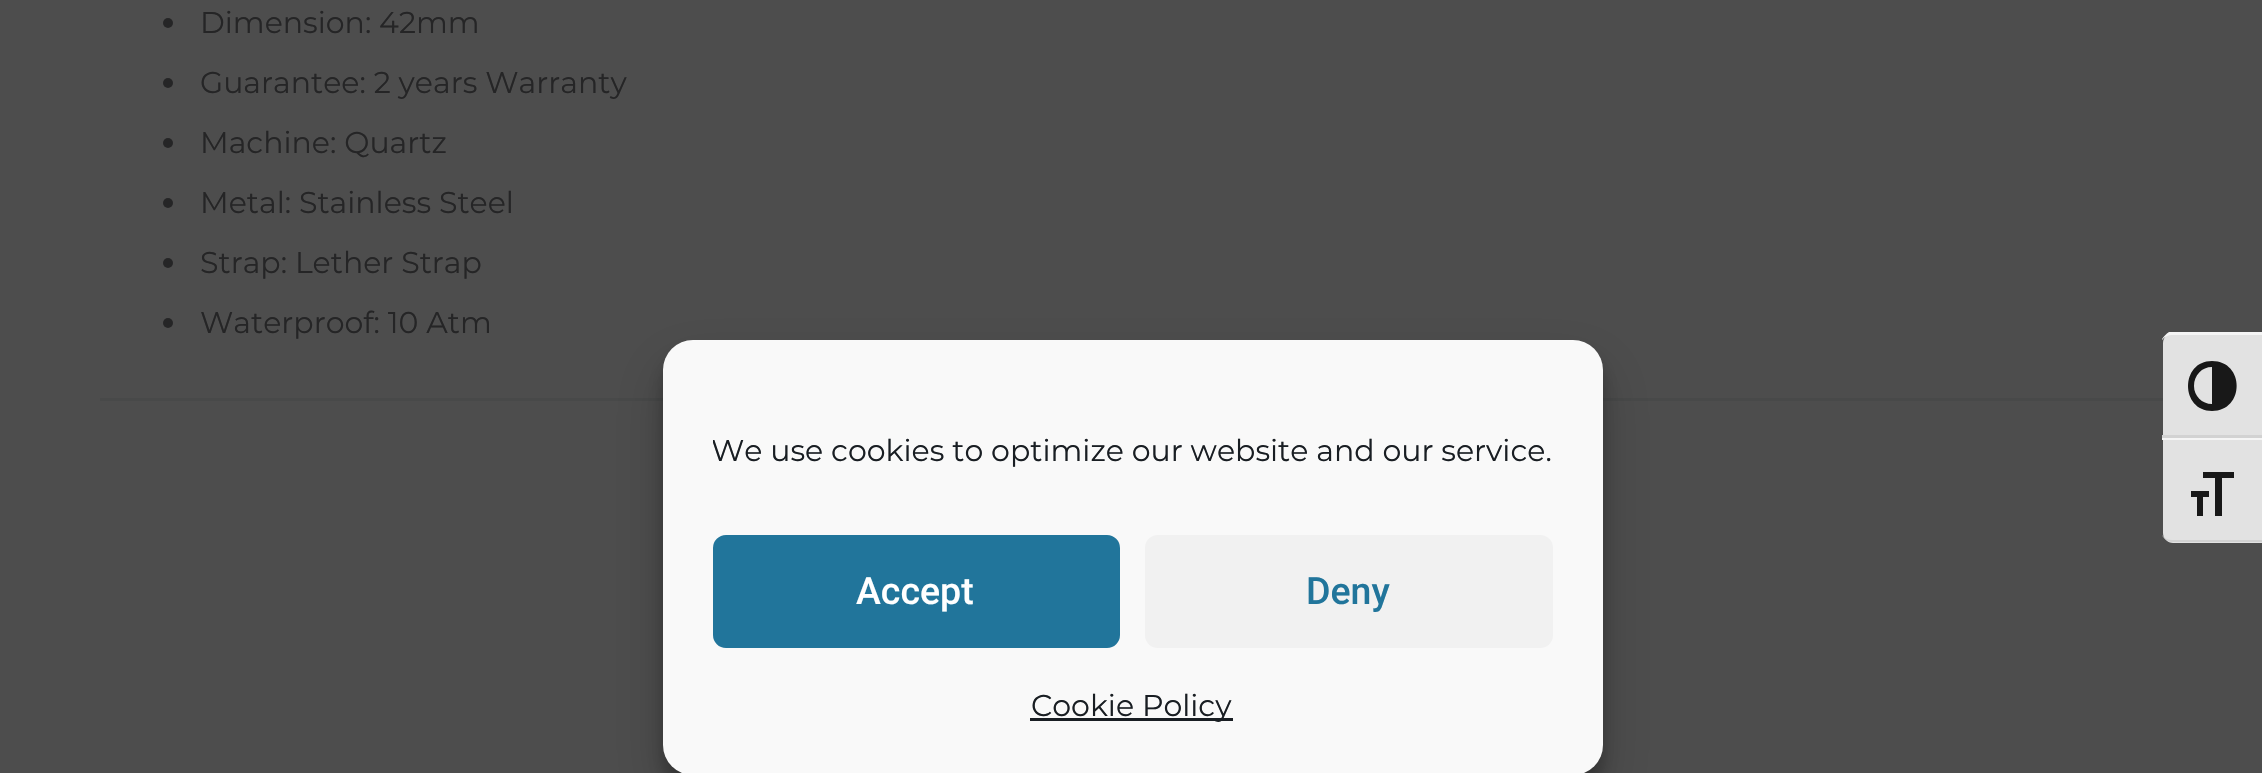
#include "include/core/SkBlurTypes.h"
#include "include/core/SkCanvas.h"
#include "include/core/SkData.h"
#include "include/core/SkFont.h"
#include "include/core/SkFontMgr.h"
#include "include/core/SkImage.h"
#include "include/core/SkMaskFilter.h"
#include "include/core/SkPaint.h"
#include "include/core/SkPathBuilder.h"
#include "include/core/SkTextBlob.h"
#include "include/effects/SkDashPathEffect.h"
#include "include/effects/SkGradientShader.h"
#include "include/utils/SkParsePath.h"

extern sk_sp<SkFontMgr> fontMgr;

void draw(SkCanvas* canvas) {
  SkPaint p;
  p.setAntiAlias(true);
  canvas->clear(SkColorSetRGB(77, 77, 77));
  p.setColor(SkColorSetRGB(37, 37, 38));
  canvas->drawCircle(168, 23, 5, p);
  canvas->drawCircle(168, 83, 5, p);
  canvas->drawCircle(168, 143, 5, p);
  canvas->drawCircle(168, 203, 5, p);
  canvas->drawCircle(168, 263, 5, p);
  canvas->drawCircle(168, 323, 5, p);
  p.setColor(SkColorSetRGB(72, 73, 73));
  canvas->drawRect(SkRect::MakeLTRB(100, 398, 2163, 401), p);
  p.setColor(SkColorSetARGB(59, 0, 0, 0));
  p.setMaskFilter(SkMaskFilter::MakeBlur(kNormal_SkBlurStyle, 7.5f));
  canvas->drawRoundRect(SkRect::MakeLTRB(663, 355, 1603, 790), 30, 30, p);
  p.setMaskFilter(nullptr);
  p.setColor(SkColorSetARGB(48, 0, 0, 0));
  p.setMaskFilter(SkMaskFilter::MakeBlur(kNormal_SkBlurStyle, 25));
  canvas->drawRoundRect(SkRect::MakeLTRB(663, 365, 1603, 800), 30, 30, p);
  p.setMaskFilter(nullptr);
  p.setColor(SkColorSetRGB(249, 249, 249));
  canvas->drawRoundRect(SkRect::MakeLTRB(663, 340, 1603, 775), 30, 30, p);
  p.setColor(SkColorSetRGB(33, 117, 155));
  canvas->drawRoundRect(SkRect::MakeLTRB(714.5f, 536.5f, 1118.5f, 646.5f), 11.5f, 11.5f, p);
  p.setStyle(SkPaint::kStroke_Style);
  p.setStrokeWidth(3);
  canvas->drawRoundRect(SkRect::MakeLTRB(714.5f, 536.5f, 1118.5f, 646.5f), 11.5f, 11.5f, p);
  p.setStyle(SkPaint::kFill_Style);
  p.setColor(SkColorSetRGB(241, 241, 241));
  canvas->drawRoundRect(SkRect::MakeLTRB(1145, 535, 1553, 648), 13, 13, p);
  p.setColor(SkColorSetRGB(25, 30, 35));
  canvas->drawRect(SkRect::MakeLTRB(1030, 718, 1233, 721), p);
  p.setColor(SkColorSetRGB(226, 226, 226));
  canvas->drawPath(SkPathBuilder().moveTo(2173, 333).lineTo(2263, 333).lineTo(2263, 438).lineTo(2163, 438).lineTo(2163, 343).cubicTo(2163, 337.5f, 2167.5f, 333, 2173, 333).close().detach(), p);
  p.setColor(SkColorSetRGB(245, 245, 245));
  canvas->drawPath(SkPathBuilder().moveTo(2172, 335).cubicTo(2168, 335, 2164, 337, 2162, 340).lineTo(2162, 339).cubicTo(2164, 336, 2166, 334, 2169, 332).lineTo(2262, 332).lineTo(2262, 335).close().detach(), p);
  p.setColor(SkColorSetRGB(210, 210, 210));
  canvas->drawRect(SkRect::MakeLTRB(2162, 435, 2262, 438), p);
  p.setColor(SkColorSetRGB(24, 24, 24));
  canvas->drawPath(SkPathBuilder().moveTo(2212, 361).cubicTo(2180, 361, 2180, 411, 2212, 411).cubicTo(2245, 411, 2245, 361, 2212, 361).close().moveTo(2194, 386).cubicTo(2194, 375, 2202, 367, 2212, 367).lineTo(2212, 404).cubicTo(2202, 404, 2194, 396, 2194, 386).close().detach(), p);
  p.setColor(SkColorSetRGB(226, 226, 226));
  canvas->drawPath(SkPathBuilder().moveTo(2163, 438).lineTo(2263, 438).lineTo(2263, 543).lineTo(2173, 543).cubicTo(2167.5f, 543, 2163, 538.5f, 2163, 533).close().detach(), p);
  p.setColor(SkColorSetRGB(245, 245, 245));
  canvas->drawRect(SkRect::MakeLTRB(2162, 438, 2262, 440), p);
  p.setColor(SkColorSetRGB(210, 210, 210));
  canvas->drawPath(SkPathBuilder().moveTo(2262, 542).lineTo(2262, 540).lineTo(2172, 540).cubicTo(2168, 540, 2164, 538, 2162, 535).cubicTo(2164, 539, 2168, 542, 2172, 542).close().detach(), p);
  p.setColor(SkColorSetRGB(24, 24, 24));
  canvas->drawPath(SkPathBuilder().moveTo(2191, 491).lineTo(2209, 491).lineTo(2209, 497).lineTo(2203, 497).lineTo(2203, 516).lineTo(2197, 516).lineTo(2197, 497).lineTo(2191, 497).close().moveTo(2234, 478).lineTo(2222, 478).lineTo(2222, 516).lineTo(2215, 516).lineTo(2215, 478).lineTo(2203, 478).lineTo(2203, 472).lineTo(2234, 472).close().detach(), p);
  SkFont font1(fontMgr->matchFamilyStyle("Montserrat", SkFontStyle(100, SkFontStyle::kNormal_Width, SkFontStyle::kUpright_Slant)), 30);
  font1.setSubpixel(true);
  p.setColor(SkColorSetRGB(37, 37, 38));
  canvas->drawString("Dimension: 42mm", 200, 33, font1, p);
  canvas->drawString("Guarantee: 2 years Warranty", 200, 93, font1, p);
  canvas->drawString("Machine: Quartz", 200, 153, font1, p);
  canvas->drawString("Metal: Stainless Steel", 200, 213, font1, p);
  canvas->drawString("Strap: Lether Strap", 200, 273, font1, p);
  canvas->drawString("Waterproof: 10 Atm", 200, 333, font1, p);
  canvas->save();
  canvas->clipRect(SkRect::MakeLTRB(713, 428, 1553, 485));
  p.setColor(SkColorSetRGB(25, 30, 35));
  canvas->drawString("We use cookies to optimize our website and our service.", 711, 461, font1, p);
  canvas->restore();
  SkFont font2(fontMgr->matchFamilyStyle("Roboto", SkFontStyle(500, SkFontStyle::kNormal_Width, SkFontStyle::kUpright_Slant)), 37.5f);
  font2.setSubpixel(true);
  p.setColor(SK_ColorWHITE);
  canvas->drawString("Accept", 856, 604, font2, p);
  p.setColor(SkColorSetRGB(33, 117, 155));
  canvas->drawString("Deny", 1306, 604, font2, p);
  p.setColor(SkColorSetRGB(25, 30, 35));
  canvas->drawString("Cookie Policy", 1031, 716, font1, p);
}
